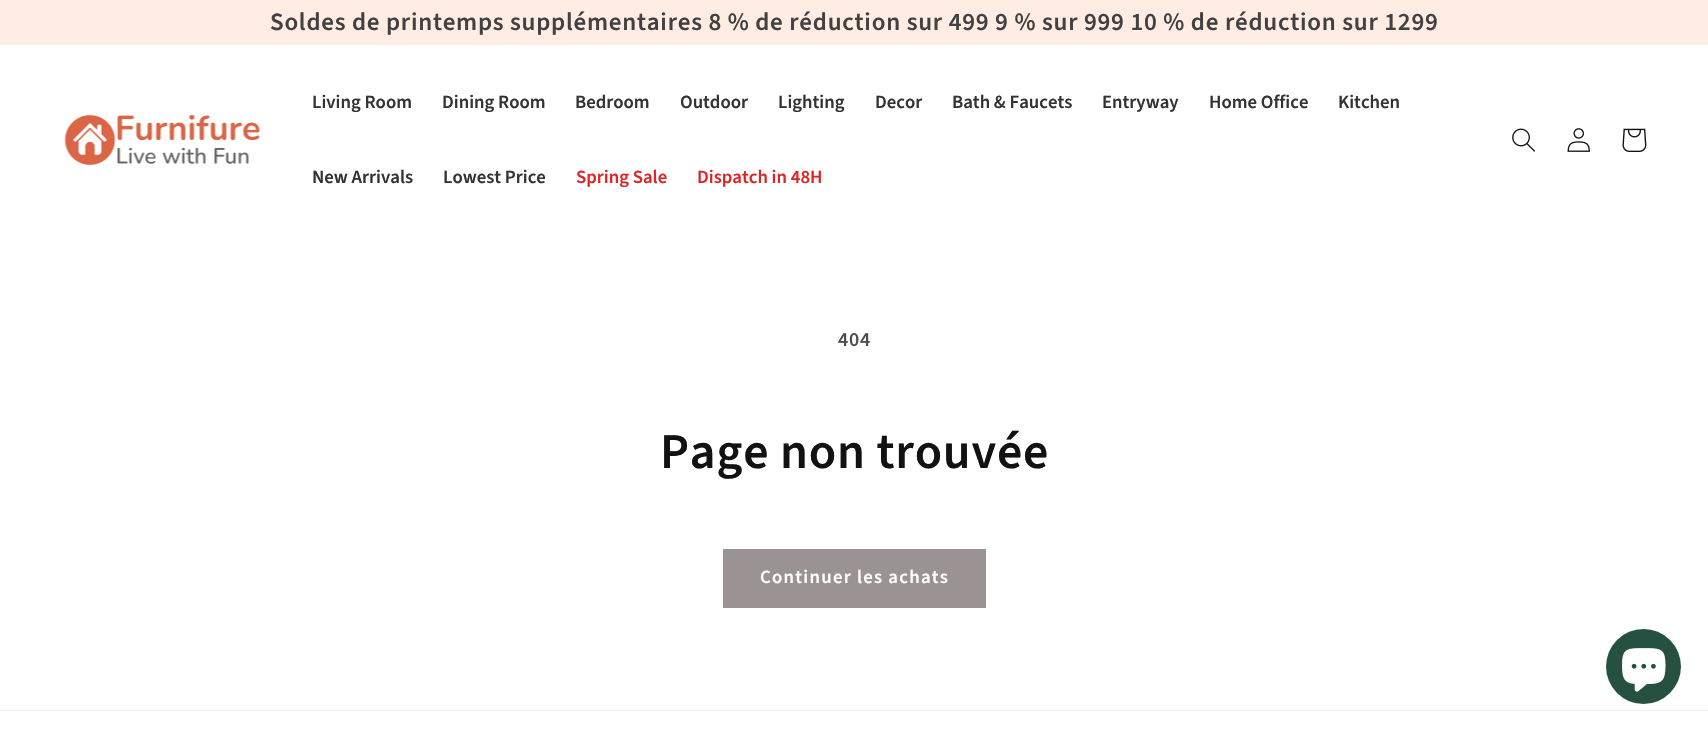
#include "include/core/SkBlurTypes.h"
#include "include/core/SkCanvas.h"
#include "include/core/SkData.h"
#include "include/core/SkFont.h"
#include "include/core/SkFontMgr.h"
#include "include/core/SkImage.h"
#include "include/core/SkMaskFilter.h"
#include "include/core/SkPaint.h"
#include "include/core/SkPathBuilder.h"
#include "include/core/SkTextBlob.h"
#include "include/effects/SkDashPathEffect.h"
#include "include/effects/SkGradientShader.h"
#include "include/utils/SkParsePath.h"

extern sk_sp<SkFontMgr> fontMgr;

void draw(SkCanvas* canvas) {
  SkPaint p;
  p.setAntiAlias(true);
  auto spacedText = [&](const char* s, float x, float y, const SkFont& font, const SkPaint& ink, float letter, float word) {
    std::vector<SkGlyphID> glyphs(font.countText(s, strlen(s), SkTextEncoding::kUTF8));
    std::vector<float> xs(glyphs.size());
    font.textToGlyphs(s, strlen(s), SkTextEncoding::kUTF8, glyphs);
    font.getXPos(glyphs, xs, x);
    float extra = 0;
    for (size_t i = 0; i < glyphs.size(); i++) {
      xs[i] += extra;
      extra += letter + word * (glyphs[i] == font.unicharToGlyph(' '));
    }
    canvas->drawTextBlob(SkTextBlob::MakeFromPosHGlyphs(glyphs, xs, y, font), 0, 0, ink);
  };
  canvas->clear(SK_ColorWHITE);
  p.setColor(SkColorSetRGB(255, 236, 227));
  canvas->drawRect(SkRect::MakeLTRB(0, 0, 1708, 45), p);
  canvas->drawImageRect(SkImages::DeferredFromEncodedData(SkData::MakeFromFileName("images/1.png")), SkRect::MakeLTRB(64, 115, 260, 165), SkSamplingOptions());
  canvas->drawImageRect(SkImages::DeferredFromEncodedData(SkData::MakeFromFileName("images/2.png")), SkRect::MakeLTRB(1512, 128, 1535, 152), SkSamplingOptions());
  canvas->drawImageRect(SkImages::DeferredFromEncodedData(SkData::MakeFromFileName("images/3.png")), SkRect::MakeLTRB(1567, 128, 1590, 152), SkSamplingOptions());
  canvas->drawImageRect(SkImages::DeferredFromEncodedData(SkData::MakeFromFileName("images/4.png")), SkRect::MakeLTRB(1622, 128, 1647, 152), SkSamplingOptions());
  p.setColor(SkColorSetRGB(155, 147, 147));
  canvas->drawRect(SkRect::MakeLTRB(723, 549, 986, 608), p);
  p.setColor(SkColorSetRGB(38, 81, 65));
  canvas->drawCircle(1643.5f, 666.5f, 37.5f, p);
  canvas->drawImageRect(SkImages::DeferredFromEncodedData(SkData::MakeFromFileName("images/5.png")), SkRect::MakeLTRB(1622, 648, 1666, 692), SkSamplingOptions());
  p.setColor(SkColorSetRGB(236, 236, 236));
  canvas->drawRect(SkRect::MakeLTRB(0, 710, 1708, 711), p);
  SkFont font1(fontMgr->matchFamilyStyle("Source Sans Pro", SkFontStyle(600, SkFontStyle::kNormal_Width, SkFontStyle::kUpright_Slant)), 25);
  font1.setSubpixel(true);
  p.setColor(SkColorSetRGB(65, 65, 65));
  spacedText("Soldes de printemps supplémentaires 8 % de réduction sur 499 9 % sur 999 10 % de réduction sur 1299", 270, 30, font1, p, 0.75f, 0);
  SkFont font2(fontMgr->matchFamilyStyle("Source Sans Pro", SkFontStyle(600, SkFontStyle::kNormal_Width, SkFontStyle::kUpright_Slant)), 18.75f);
  font2.setSubpixel(true);
  p.setColor(SkColorSetRGB(51, 51, 51));
  canvas->drawString("Living Room", 312, 108, font2, p);
  canvas->drawString("Dining Room", 442, 108, font2, p);
  canvas->drawString("Bedroom", 575, 108, font2, p);
  canvas->drawString("Outdoor", 680, 108, font2, p);
  canvas->drawString("Lighting", 778, 108, font2, p);
  canvas->drawString("Decor", 875, 108, font2, p);
  canvas->drawString("Bath & Faucets", 952, 108, font2, p);
  canvas->drawString("Entryway", 1102, 108, font2, p);
  canvas->drawString("Home Office", 1209, 108, font2, p);
  canvas->drawString("Kitchen", 1338, 108, font2, p);
  canvas->drawString("New Arrivals", 312, 183, font2, p);
  canvas->drawString("Lowest Price", 443, 183, font2, p);
  p.setColor(SkColorSetRGB(220, 38, 38));
  canvas->drawString("Spring Sale", 576, 183, font2, p);
  canvas->drawString("Dispatch in 48H", 697, 183, font2, p);
  SkFont font3(fontMgr->matchFamilyStyle("Source Sans Pro", SkFontStyle(600, SkFontStyle::kNormal_Width, SkFontStyle::kUpright_Slant)), 20);
  font3.setSubpixel(true);
  p.setColor(SkColorSetRGB(77, 77, 77));
  spacedText("404", 838, 346, font3, p, 0.75f, 0);
  SkFont font4(fontMgr->matchFamilyStyle("Source Sans Pro", SkFontStyle(600, SkFontStyle::kNormal_Width, SkFontStyle::kUpright_Slant)), 50);
  font4.setSubpixel(true);
  p.setColor(SkColorSetRGB(18, 18, 18));
  spacedText("Page non trouvée", 660, 468, font4, p, 0.75f, 0);
  p.setColor(SK_ColorWHITE);
  spacedText("Continuer les achats", 760, 583, font2, p, 1.25f, 0);
}
